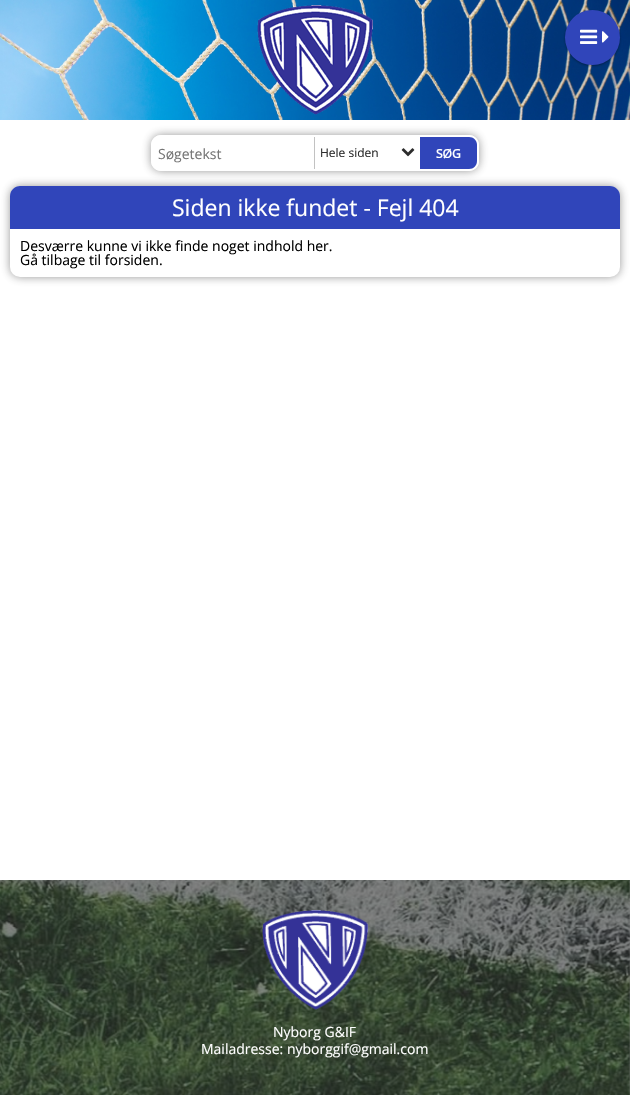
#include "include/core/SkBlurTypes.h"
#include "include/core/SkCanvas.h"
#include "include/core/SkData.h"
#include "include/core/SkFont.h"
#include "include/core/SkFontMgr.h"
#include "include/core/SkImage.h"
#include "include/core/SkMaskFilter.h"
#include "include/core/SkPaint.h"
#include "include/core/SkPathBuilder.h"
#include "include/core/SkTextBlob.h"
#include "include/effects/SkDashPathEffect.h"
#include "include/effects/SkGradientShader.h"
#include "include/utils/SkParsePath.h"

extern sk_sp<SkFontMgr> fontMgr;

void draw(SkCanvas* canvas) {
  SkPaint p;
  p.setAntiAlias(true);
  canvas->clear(SK_ColorWHITE);
  p.setColor(SkColorSetARGB(128, 48, 48, 48));
  p.setMaskFilter(SkMaskFilter::MakeBlur(kNormal_SkBlurStyle, 5));
  canvas->drawRoundRect(SkRect::MakeLTRB(10, 186, 620, 277), 10, 10, p);
  p.setMaskFilter(nullptr);
  p.setColor(SK_ColorWHITE);
  canvas->drawRoundRect(SkRect::MakeLTRB(10, 186, 620, 277), 10, 10, p);
  p.setColor(SkColorSetRGB(48, 69, 186));
  canvas->drawPath(SkPathBuilder().moveTo(20, 186).lineTo(610, 186).cubicTo(615.5f, 186, 620, 190.5f, 620, 196).lineTo(620, 229).lineTo(10, 229).lineTo(10, 196).cubicTo(10, 190.5f, 14.5f, 186, 20, 186).close().detach(), p);
  canvas->save();
  canvas->clipPath(SkPathBuilder(SkPathFillType::kEvenOdd).moveTo(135, 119).lineTo(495, 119).lineTo(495, 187).lineTo(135, 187).close().moveTo(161, 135).lineTo(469, 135).cubicTo(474.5f, 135, 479, 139.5f, 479, 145).lineTo(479, 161).cubicTo(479, 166.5f, 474.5f, 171, 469, 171).lineTo(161, 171).cubicTo(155.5f, 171, 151, 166.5f, 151, 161).lineTo(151, 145).cubicTo(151, 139.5f, 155.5f, 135, 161, 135).close().detach(), true);
  p.setColor(SkColorSetARGB(128, 48, 48, 48));
  p.setMaskFilter(SkMaskFilter::MakeBlur(kNormal_SkBlurStyle, 5));
  canvas->drawRoundRect(SkRect::MakeLTRB(151, 135, 479, 171), 10, 10, p);
  p.setMaskFilter(nullptr);
  canvas->restore();
  canvas->drawImageRect(SkImages::DeferredFromEncodedData(SkData::MakeFromFileName("images/1.png")), SkRect::MakeLTRB(0, 0, 630, 120), SkSamplingOptions());
  canvas->drawImageRect(SkImages::DeferredFromEncodedData(SkData::MakeFromFileName("images/2.png")), SkRect::MakeLTRB(257, 5, 373, 115), SkSamplingOptions());
  p.setColor(SkColorSetARGB(61, 0, 0, 0));
  p.setMaskFilter(SkMaskFilter::MakeBlur(kNormal_SkBlurStyle, 1));
  canvas->drawRoundRect(SkRect::MakeLTRB(565, 11, 620, 66), 27.5f, 27.5f, p);
  p.setMaskFilter(nullptr);
  p.setColor(SkColorSetARGB(31, 0, 0, 0));
  p.setMaskFilter(SkMaskFilter::MakeBlur(kNormal_SkBlurStyle, 1.5f));
  canvas->drawRoundRect(SkRect::MakeLTRB(565, 11, 620, 66), 27.5f, 27.5f, p);
  p.setMaskFilter(nullptr);
  p.setColor(SkColorSetRGB(48, 69, 186));
  canvas->drawCircle(592.5f, 37.5f, 27.5f, p);
  canvas->drawImageRect(SkImages::DeferredFromEncodedData(SkData::MakeFromFileName("images/3.png")), SkRect::MakeLTRB(580, 29, 598, 44), SkSamplingOptions());
  canvas->drawImageRect(SkImages::DeferredFromEncodedData(SkData::MakeFromFileName("images/4.png")), SkRect::MakeLTRB(602, 31, 609, 43), SkSamplingOptions());
  p.setStyle(SkPaint::kStroke_Style);
  p.setStrokeWidth(2);
  p.setColor(SK_ColorWHITE);
  canvas->drawRoundRect(SkRect::MakeLTRB(152, 136, 478, 170), 9, 9, p);
  p.setStyle(SkPaint::kFill_Style);
  p.setColor(SkColorSetRGB(194, 194, 194));
  canvas->drawRect(SkRect::MakeLTRB(314, 137, 315, 169), p);
  canvas->drawImageRect(SkImages::DeferredFromEncodedData(SkData::MakeFromFileName("images/5.png")), SkRect::MakeLTRB(401, 148, 415, 157), SkSamplingOptions());
  p.setColor(SkColorSetRGB(48, 69, 186));
  canvas->drawPath(SkPathBuilder().moveTo(420, 137).lineTo(469, 137).cubicTo(473.5f, 137, 477, 140.5f, 477, 145).lineTo(477, 161).cubicTo(477, 165.5f, 473.5f, 169, 469, 169).lineTo(420, 169).close().detach(), p);
  canvas->drawImageRect(SkImages::DeferredFromEncodedData(SkData::MakeFromFileName("images/7.png")), SkRect::MakeLTRB(0, 880, 630, 1095), SkSamplingOptions());
  p.setColor(SkColorSetARGB(153, 51, 51, 51));
  canvas->drawRect(SkRect::MakeLTRB(0, 880, 630, 1095), p);
  canvas->drawImageRect(SkImages::DeferredFromEncodedData(SkData::MakeFromFileName("images/6.png")), SkRect::MakeLTRB(262, 910, 368, 1010), SkSamplingOptions());
  SkFont font1(fontMgr->matchFamilyStyle("Open Sans", SkFontStyle::Normal()), 14);
  font1.setSubpixel(true);
  p.setColor(SkColorSetRGB(117, 117, 117));
  canvas->drawString("Søgetekst", 158, 159, font1, p);
  SkFont font2(fontMgr->matchFamilyStyle("Open Sans", SkFontStyle::Normal()), 12);
  font2.setSubpixel(true);
  p.setColor(SkColorSetRGB(44, 44, 44));
  canvas->drawString("Hele siden", 320, 157, font2, p);
  SkFont font3(fontMgr->matchFamilyStyle("Open Sans", SkFontStyle::Bold()), 12);
  font3.setSubpixel(true);
  p.setColor(SK_ColorWHITE);
  canvas->drawString("SØG", 436, 158, font3, p);
  SkFont font4(fontMgr->matchFamilyStyle("Open Sans", SkFontStyle::Normal()), 23);
  font4.setSubpixel(true);
  canvas->drawString("Siden ikke fundet - Fejl 404", 172, 216, font4, p);
  p.setColor(SK_ColorBLACK);
  canvas->drawString("Desværre kunne vi ikke finde noget indhold her.", 20, 251, font1, p);
  canvas->drawString("Gå tilbage til forsiden", 20, 265, font1, p);
  canvas->drawString(".", 159, 265, font1, p);
  p.setColor(SK_ColorWHITE);
  canvas->drawString("Nyborg G&IF", 273, 1037, font1, p);
  canvas->drawString("Mailadresse: nyborggif@gmail.com", 201, 1054, font1, p);
}
